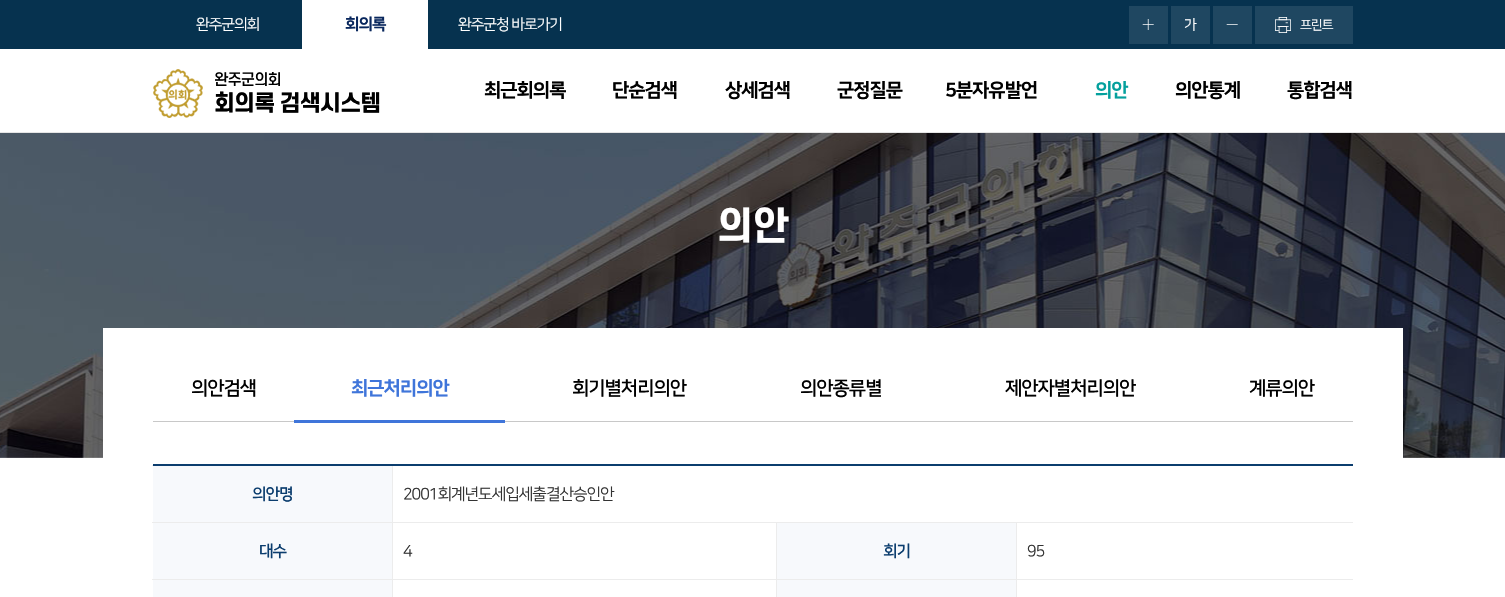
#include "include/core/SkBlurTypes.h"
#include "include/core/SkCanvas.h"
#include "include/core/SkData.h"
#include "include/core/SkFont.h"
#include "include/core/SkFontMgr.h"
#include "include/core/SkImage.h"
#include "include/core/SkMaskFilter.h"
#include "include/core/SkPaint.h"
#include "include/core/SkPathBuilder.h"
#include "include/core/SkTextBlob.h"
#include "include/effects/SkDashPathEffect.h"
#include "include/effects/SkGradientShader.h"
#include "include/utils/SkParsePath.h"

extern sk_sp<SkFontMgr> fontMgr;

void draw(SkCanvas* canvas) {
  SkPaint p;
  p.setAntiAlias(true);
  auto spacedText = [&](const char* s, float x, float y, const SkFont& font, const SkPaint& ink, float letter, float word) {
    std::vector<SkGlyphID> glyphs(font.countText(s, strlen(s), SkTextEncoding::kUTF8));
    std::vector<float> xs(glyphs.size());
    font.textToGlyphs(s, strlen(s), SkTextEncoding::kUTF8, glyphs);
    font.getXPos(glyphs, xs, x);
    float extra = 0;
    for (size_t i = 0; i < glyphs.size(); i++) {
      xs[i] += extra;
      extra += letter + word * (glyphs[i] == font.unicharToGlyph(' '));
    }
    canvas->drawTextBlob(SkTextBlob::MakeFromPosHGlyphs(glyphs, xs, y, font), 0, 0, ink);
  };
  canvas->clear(SK_ColorWHITE);
  p.setColor(SkColorSetRGB(6, 50, 79));
  canvas->drawRect(SkRect::MakeLTRB(0, 0, 1505, 49), p);
  p.setColor(SK_ColorWHITE);
  canvas->drawRect(SkRect::MakeLTRB(302, 0, 428, 49), p);
  p.setColor(SkColorSetRGB(31, 71, 97));
  canvas->drawRect(SkRect::MakeLTRB(1129, 6, 1168, 44), p);
  canvas->drawImageRect(SkImages::DeferredFromEncodedData(SkData::MakeFromFileName("images/1.png")), SkRect::MakeLTRB(1142, 19, 1154, 30), SkSamplingOptions());
  canvas->drawRect(SkRect::MakeLTRB(1171, 6, 1210, 44), p);
  canvas->drawRect(SkRect::MakeLTRB(1213, 6, 1252, 44), p);
  canvas->drawImageRect(SkImages::DeferredFromEncodedData(SkData::MakeFromFileName("images/2.png")), SkRect::MakeLTRB(1226, 24, 1238, 25), SkSamplingOptions());
  canvas->drawRect(SkRect::MakeLTRB(1255, 6, 1353, 44), p);
  canvas->drawImageRect(SkImages::DeferredFromEncodedData(SkData::MakeFromFileName("images/3.png")), SkRect::MakeLTRB(1275, 17, 1291, 33), SkSamplingOptions());
  canvas->drawImageRect(SkImages::DeferredFromEncodedData(SkData::MakeFromFileName("images/4.png")), SkRect::MakeLTRB(153, 69, 203, 118), SkSamplingOptions());
  p.setColor(SkColorSetRGB(229, 229, 229));
  canvas->drawRect(SkRect::MakeLTRB(0, 132, 1505, 133), p);
  canvas->drawImageRect(SkImages::DeferredFromEncodedData(SkData::MakeFromFileName("images/5.png")), SkRect::MakeLTRB(0, 133, 1505, 458), SkSamplingOptions());
  p.setColor(SK_ColorWHITE);
  canvas->drawRect(SkRect::MakeLTRB(103, 328, 1403, 458), p);
  p.setColor(SkColorSetRGB(200, 200, 200));
  canvas->drawRect(SkRect::MakeLTRB(153, 421, 294, 422), p);
  p.setColor(SkColorSetRGB(63, 117, 218));
  canvas->drawRect(SkRect::MakeLTRB(294, 420, 505, 423), p);
  p.setColor(SkColorSetRGB(200, 200, 200));
  canvas->drawRect(SkRect::MakeLTRB(505, 421, 1353, 422), p);
  p.setColor(SkColorSetRGB(236, 236, 236));
  canvas->drawRect(SkRect::MakeLTRB(152, 522, 1353, 523), p);
  canvas->drawRect(SkRect::MakeLTRB(152, 579, 1353, 580), p);
  canvas->drawRect(SkRect::MakeLTRB(392, 579, 393, 597), p);
  canvas->drawRect(SkRect::MakeLTRB(392, 465, 393, 580), p);
  p.setColor(SkColorSetRGB(11, 61, 110));
  canvas->drawRect(SkRect::MakeLTRB(153, 464, 1353, 466), p);
  p.setColor(SkColorSetRGB(236, 236, 236));
  canvas->drawRect(SkRect::MakeLTRB(152, 465, 153, 466), p);
  p.setColor(SkColorSetRGB(247, 249, 252));
  canvas->drawRect(SkRect::MakeLTRB(153, 466, 392, 522), p);
  canvas->drawRect(SkRect::MakeLTRB(153, 523, 392, 579), p);
  p.setColor(SkColorSetRGB(236, 236, 236));
  canvas->drawRect(SkRect::MakeLTRB(776, 579, 777, 597), p);
  canvas->drawRect(SkRect::MakeLTRB(776, 522, 777, 580), p);
  p.setColor(SkColorSetRGB(247, 249, 252));
  canvas->drawRect(SkRect::MakeLTRB(777, 523, 1016, 579), p);
  p.setColor(SkColorSetRGB(236, 236, 236));
  canvas->drawRect(SkRect::MakeLTRB(1016, 579, 1017, 597), p);
  canvas->drawRect(SkRect::MakeLTRB(1016, 522, 1017, 580), p);
  p.setColor(SkColorSetRGB(247, 249, 252));
  canvas->drawRect(SkRect::MakeLTRB(153, 580, 392, 597), p);
  canvas->drawRect(SkRect::MakeLTRB(777, 580, 1016, 597), p);
  SkFont font1(fontMgr->matchFamilyStyle("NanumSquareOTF", SkFontStyle::Normal()), 15);
  font1.setSubpixel(true);
  p.setColor(SK_ColorWHITE);
  spacedText("완주군의회", 196, 29, font1, p, -1, 0);
  SkFont font2(fontMgr->matchFamilyStyle("NanumSquareOTF", SkFontStyle(800, SkFontStyle::kNormal_Width, SkFontStyle::kUpright_Slant)), 16);
  font2.setSubpixel(true);
  p.setColor(SkColorSetRGB(9, 39, 93));
  spacedText("회의록", 345, 29, font2, p, -1, 0);
  p.setColor(SK_ColorWHITE);
  spacedText("완주군청 바로가기", 458, 29, font1, p, -1, 0);
  SkFont font3(fontMgr->matchFamilyStyle("NanumSquareOTF", SkFontStyle::Normal()), 14);
  font3.setSubpixel(true);
  spacedText("가", 1184, 29, font3, p, -1, 0);
  SkFont font4(fontMgr->matchFamilyStyle("NanumSquareOTF", SkFontStyle::Normal()), 13);
  font4.setSubpixel(true);
  spacedText("프린트", 1300, 29, font4, p, -1, 0);
  SkFont font5(fontMgr->matchFamilyStyle("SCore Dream", SkFontStyle(500, SkFontStyle::kNormal_Width, SkFontStyle::kUpright_Slant)), 15);
  font5.setSubpixel(true);
  p.setColor(SK_ColorBLACK);
  spacedText("완주군의회", 214, 85, font5, p, -1, 0);
  SkFont font6(fontMgr->matchFamilyStyle("SCore Dream", SkFontStyle(800, SkFontStyle::kNormal_Width, SkFontStyle::kUpright_Slant)), 22);
  font6.setSubpixel(true);
  spacedText("회의록 검색시스템", 214, 111, font6, p, -1, 0);
  SkFont font7(fontMgr->matchFamilyStyle("NanumSquareOTF", SkFontStyle(800, SkFontStyle::kNormal_Width, SkFontStyle::kUpright_Slant)), 19);
  font7.setSubpixel(true);
  spacedText("최근회의록", 484, 96, font7, p, -1, 0);
  spacedText("단순검색", 612, 96, font7, p, -1, 0);
  spacedText("상세검색", 725, 96, font7, p, -1, 0);
  spacedText("군정질문", 837, 96, font7, p, -1, 0);
  spacedText("5분자유발언", 945, 96, font7, p, -1, 0);
  p.setColor(SkColorSetRGB(4, 160, 157));
  spacedText("의안", 1095, 96, font7, p, -1, 0);
  p.setColor(SK_ColorBLACK);
  spacedText("의안통계", 1175, 96, font7, p, -1, 0);
  spacedText("통합검색", 1287, 96, font7, p, -1, 0);
  SkFont font8(fontMgr->matchFamilyStyle("SCore Dream", SkFontStyle(800, SkFontStyle::kNormal_Width, SkFontStyle::kUpright_Slant)), 38);
  font8.setSubpixel(true);
  p.setColor(SK_ColorWHITE);
  spacedText("의안", 717, 240, font8, p, -1, 0);
  SkFont font9(fontMgr->matchFamilyStyle("NanumSquareOTF", SkFontStyle::Bold()), 19);
  font9.setSubpixel(true);
  p.setColor(SK_ColorBLACK);
  spacedText("의안검색", 191, 394, font9, p, -1, 0);
  p.setColor(SkColorSetRGB(63, 117, 218));
  spacedText("최근처리의안", 351, 394, font7, p, -1, 0);
  p.setColor(SK_ColorBLACK);
  spacedText("회기별처리의안", 572, 394, font9, p, -1, 0);
  spacedText("의안종류별", 800, 394, font9, p, -1, 0);
  spacedText("제안자별처리의안", 1005, 394, font9, p, -1, 0);
  spacedText("계류의안", 1249, 394, font9, p, -1, 0);
  SkFont font10(fontMgr->matchFamilyStyle("NanumSquareOTF", SkFontStyle::Bold()), 16);
  font10.setSubpixel(true);
  p.setColor(SkColorSetRGB(11, 61, 110));
  spacedText("의안명", 252, 499, font10, p, -1, 0);
  SkFont font11(fontMgr->matchFamilyStyle("NanumSquareOTF", SkFontStyle::Normal()), 16);
  font11.setSubpixel(true);
  p.setColor(SkColorSetRGB(51, 51, 51));
  spacedText("2001회계년도세입세출결산승인안", 403, 499, font11, p, -1, 0);
  p.setColor(SkColorSetRGB(11, 61, 110));
  spacedText("대수", 259, 556, font10, p, -1, 0);
  p.setColor(SkColorSetRGB(51, 51, 51));
  spacedText("4", 403, 556, font11, p, -1, 0);
  p.setColor(SkColorSetRGB(11, 61, 110));
  spacedText("회기", 883, 556, font10, p, -1, 0);
  p.setColor(SkColorSetRGB(51, 51, 51));
  spacedText("95", 1027, 556, font11, p, -1, 0);
}
